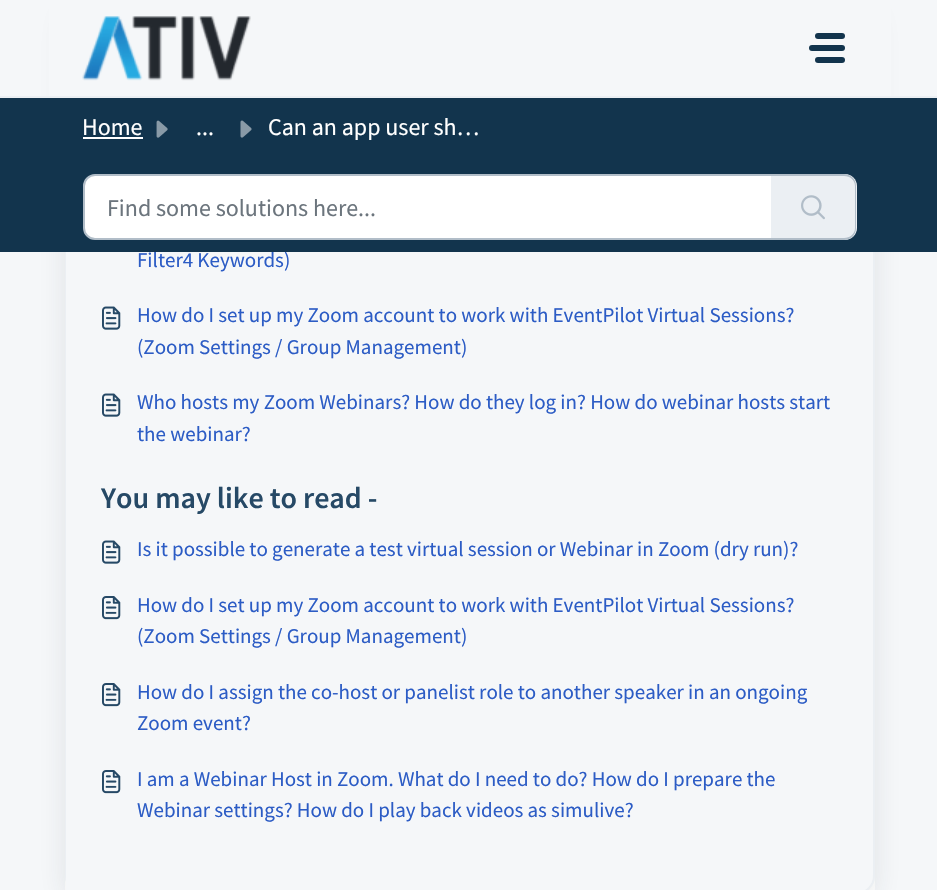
#include "include/core/SkBlurTypes.h"
#include "include/core/SkCanvas.h"
#include "include/core/SkData.h"
#include "include/core/SkFont.h"
#include "include/core/SkFontMgr.h"
#include "include/core/SkImage.h"
#include "include/core/SkMaskFilter.h"
#include "include/core/SkPaint.h"
#include "include/core/SkPathBuilder.h"
#include "include/core/SkTextBlob.h"
#include "include/effects/SkDashPathEffect.h"
#include "include/effects/SkGradientShader.h"
#include "include/utils/SkParsePath.h"

extern sk_sp<SkFontMgr> fontMgr;

void draw(SkCanvas* canvas) {
  SkPaint p;
  p.setAntiAlias(true);
  canvas->clear(SkColorSetRGB(245, 247, 249));
  p.setColor(SK_ColorWHITE);
  canvas->drawRect(SkRect::MakeLTRB(65, 875, 875, 890), p);
  p.setColor(SkColorSetARGB(26, 39, 49, 58));
  p.setMaskFilter(SkMaskFilter::MakeBlur(kNormal_SkBlurStyle, 14));
  canvas->drawRoundRect(SkRect::MakeLTRB(65, 9, 875, 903), 18, 18, p);
  p.setMaskFilter(nullptr);
  p.setStyle(SkPaint::kStroke_Style);
  p.setStrokeWidth(2);
  p.setColor(SkColorSetRGB(235, 239, 243));
  canvas->drawRoundRect(SkRect::MakeLTRB(66, 1, 874, 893), 17, 17, p);
  p.setStyle(SkPaint::kFill_Style);
  p.setColor(SkColorSetRGB(245, 247, 249));
  canvas->drawPath(SkPathBuilder().moveTo(66, 2).lineTo(855, 2).cubicTo(865, 2, 873, 10, 873, 20).lineTo(873, 875).cubicTo(873, 885, 865, 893, 855, 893).lineTo(66, 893).close().detach(), p);
  canvas->drawRect(SkRect::MakeLTRB(49, 0, 891, 96), p);
  p.setColor(SkColorSetRGB(235, 239, 243));
  canvas->drawRect(SkRect::MakeLTRB(0, 96, 937, 98), p);
  canvas->drawImageRect(SkImages::DeferredFromEncodedData(SkData::MakeFromFileName("images/1.png")), SkRect::MakeLTRB(82, 16, 251, 81), SkSamplingOptions());
  p.setColor(SkColorSetRGB(18, 52, 77));
  canvas->drawRoundRect(SkRect::MakeLTRB(815, 33, 845, 39), 3, 3, p);
  canvas->drawRoundRect(SkRect::MakeLTRB(809, 45, 845, 51), 3, 3, p);
  canvas->drawRoundRect(SkRect::MakeLTRB(815, 57, 845, 63), 3, 3, p);
  canvas->drawImageRect(SkImages::DeferredFromEncodedData(SkData::MakeFromFileName("images/5.png")), SkRect::MakeLTRB(102, 306, 121, 330), SkSamplingOptions());
  canvas->drawImageRect(SkImages::DeferredFromEncodedData(SkData::MakeFromFileName("images/5.png")), SkRect::MakeLTRB(102, 393, 121, 417), SkSamplingOptions());
  canvas->drawImageRect(SkImages::DeferredFromEncodedData(SkData::MakeFromFileName("images/5.png")), SkRect::MakeLTRB(102, 540, 121, 564), SkSamplingOptions());
  canvas->drawImageRect(SkImages::DeferredFromEncodedData(SkData::MakeFromFileName("images/6.png")), SkRect::MakeLTRB(102, 596, 121, 620), SkSamplingOptions());
  canvas->drawImageRect(SkImages::DeferredFromEncodedData(SkData::MakeFromFileName("images/6.png")), SkRect::MakeLTRB(102, 683, 121, 707), SkSamplingOptions());
  canvas->drawImageRect(SkImages::DeferredFromEncodedData(SkData::MakeFromFileName("images/6.png")), SkRect::MakeLTRB(102, 770, 121, 794), SkSamplingOptions());
  SkFont font1(fontMgr->matchFamilyStyle("Source Sans Pro", SkFontStyle::Normal()), 21);
  font1.setSubpixel(true);
  p.setColor(SkColorSetRGB(44, 92, 197));
  canvas->drawString("Filter4 Keywords)", 137, 267, font1, p);
  p.setColor(SkColorSetRGB(18, 52, 77));
  canvas->drawRect(SkRect::MakeLTRB(0, 98, 937, 252), p);
  p.setColor(SK_ColorWHITE);
  canvas->drawPath(SkPathBuilder().moveTo(95, 175).lineTo(772, 175).lineTo(772, 239).lineTo(95, 239).cubicTo(89, 239, 84, 234, 84, 228).lineTo(84, 186).cubicTo(84, 180, 89, 175, 95, 175).close().detach(), p);
  p.setStyle(SkPaint::kStroke_Style);
  p.setColor(SkColorSetRGB(177, 189, 200));
  canvas->drawPath(SkPathBuilder().moveTo(95, 175).lineTo(772, 175).lineTo(772, 239).lineTo(95, 239).cubicTo(89, 239, 84, 234, 84, 228).lineTo(84, 186).cubicTo(84, 180, 89, 175, 95, 175).close().detach(), p);
  p.setStyle(SkPaint::kFill_Style);
  p.setColor(SkColorSetRGB(235, 239, 243));
  canvas->drawPath(SkPathBuilder().moveTo(771, 174).lineTo(845, 174).cubicTo(851.5f, 174, 857, 179.5f, 857, 186).lineTo(857, 228).cubicTo(857, 234.5f, 851.5f, 240, 845, 240).lineTo(771, 240).close().detach(), p);
  p.setColor(SkColorSetRGB(177, 189, 200));
  canvas->drawPath(SkPathBuilder(SkPathFillType::kEvenOdd).moveTo(771, 174).lineTo(844, 174).cubicTo(851, 174, 856, 179, 856, 186).lineTo(856, 228).cubicTo(856, 235, 851, 240, 844, 240).lineTo(771, 240).close().moveTo(771, 176).lineTo(844, 176).cubicTo(850, 176, 855, 180, 855, 186).lineTo(855, 228).cubicTo(855, 234, 850, 238, 844, 238).lineTo(771, 238).close().detach(), p);
  canvas->drawImageRect(SkImages::DeferredFromEncodedData(SkData::MakeFromFileName("images/4.png")), SkRect::MakeLTRB(801, 195, 825, 220), SkSamplingOptions());
  SkFont font2(fontMgr->matchFamilyStyle("Source Sans Pro", SkFontStyle::Normal()), 24);
  font2.setSubpixel(true);
  p.setColor(SkColorSetRGB(108, 117, 125));
  canvas->drawString("Find some solutions here...", 107, 216, font2, p);
  canvas->drawImageRect(SkImages::DeferredFromEncodedData(SkData::MakeFromFileName("images/3.png")), SkRect::MakeLTRB(240, 120, 252, 138), SkSamplingOptions());
  canvas->drawImageRect(SkImages::DeferredFromEncodedData(SkData::MakeFromFileName("images/2.png")), SkRect::MakeLTRB(156, 120, 168, 138), SkSamplingOptions());
  p.setColor(SK_ColorWHITE);
  canvas->drawString("Can an app user sh…", 268, 135, font2, p);
  canvas->drawString("...", 196, 135, font2, p);
  canvas->drawString("Home", 82, 135, font2, p);
  canvas->drawRect(SkRect::MakeLTRB(83, 137, 143, 139), p);
  p.setColor(SkColorSetRGB(44, 92, 197));
  canvas->drawString("How do I set up my Zoom account to work with EventPilot Virtual Sessions?", 137, 322, font1, p);
  canvas->drawString("(Zoom Settings / Group Management)", 137, 354, font1, p);
  canvas->drawString("Who hosts my Zoom Webinars? How do they log in? How do webinar hosts start", 137, 409, font1, p);
  canvas->drawString("the webinar?", 137, 441, font1, p);
  SkFont font3(fontMgr->matchFamilyStyle("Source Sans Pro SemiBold", SkFontStyle(600, SkFontStyle::kNormal_Width, SkFontStyle::kUpright_Slant)), 30);
  font3.setSubpixel(true);
  p.setColor(SkColorSetRGB(38, 73, 102));
  canvas->drawString("You may like to read -", 101, 508, font3, p);
  p.setColor(SkColorSetRGB(44, 92, 197));
  canvas->drawString("Is it possible to generate a test virtual session or Webinar in Zoom (dry run)?", 137, 556, font1, p);
  canvas->drawString("How do I set up my Zoom account to work with EventPilot Virtual Sessions?", 137, 612, font1, p);
  canvas->drawString("(Zoom Settings / Group Management)", 137, 643, font1, p);
  canvas->drawString("How do I assign the co-host or panelist role to another speaker in an ongoing", 137, 699, font1, p);
  canvas->drawString("Zoom event?", 137, 730, font1, p);
  canvas->drawString("I am a Webinar Host in Zoom. What do I need to do? How do I prepare the", 137, 786, font1, p);
  canvas->drawString("Webinar settings? How do I play back videos as simulive?", 137, 817, font1, p);
}
